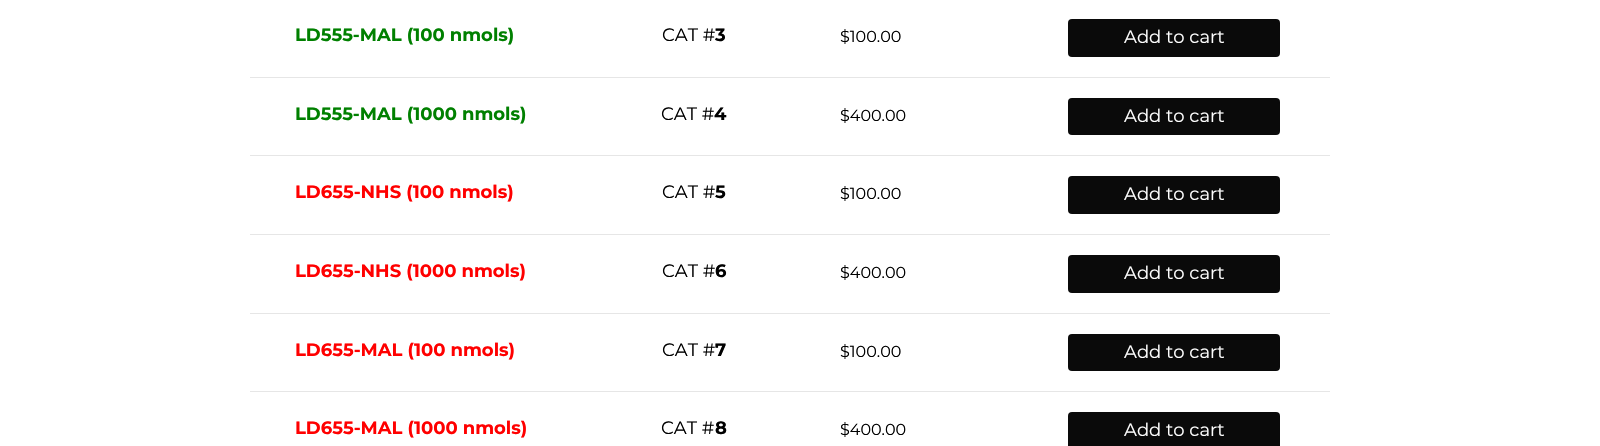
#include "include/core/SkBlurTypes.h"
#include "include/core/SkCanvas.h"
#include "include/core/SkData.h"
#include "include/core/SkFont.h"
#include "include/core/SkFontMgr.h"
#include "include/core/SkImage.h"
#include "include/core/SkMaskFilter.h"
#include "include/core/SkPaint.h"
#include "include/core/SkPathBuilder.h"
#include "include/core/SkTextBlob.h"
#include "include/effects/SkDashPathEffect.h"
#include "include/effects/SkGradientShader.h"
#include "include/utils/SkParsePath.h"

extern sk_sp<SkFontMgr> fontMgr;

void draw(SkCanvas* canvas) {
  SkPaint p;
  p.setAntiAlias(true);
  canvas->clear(SK_ColorWHITE);
  p.setColor(SkColorSetRGB(230, 230, 230));
  canvas->drawRect(SkRect::MakeLTRB(250, 77, 1330, 78), p);
  p.setColor(SkColorSetRGB(10, 10, 10));
  canvas->drawRoundRect(SkRect::MakeLTRB(1068, 19, 1280, 57), 4, 4, p);
  p.setColor(SkColorSetRGB(230, 230, 230));
  canvas->drawRect(SkRect::MakeLTRB(250, 155, 1330, 156), p);
  p.setColor(SkColorSetRGB(10, 10, 10));
  canvas->drawRoundRect(SkRect::MakeLTRB(1068, 98, 1280, 135), 4, 4, p);
  p.setColor(SkColorSetRGB(230, 230, 230));
  canvas->drawRect(SkRect::MakeLTRB(250, 234, 1330, 235), p);
  p.setColor(SkColorSetRGB(10, 10, 10));
  canvas->drawRoundRect(SkRect::MakeLTRB(1068, 176, 1280, 214), 4, 4, p);
  p.setColor(SkColorSetRGB(230, 230, 230));
  canvas->drawRect(SkRect::MakeLTRB(250, 313, 1330, 314), p);
  p.setColor(SkColorSetRGB(10, 10, 10));
  canvas->drawRoundRect(SkRect::MakeLTRB(1068, 255, 1280, 293), 4, 4, p);
  p.setColor(SkColorSetRGB(230, 230, 230));
  canvas->drawRect(SkRect::MakeLTRB(250, 391, 1330, 392), p);
  p.setColor(SkColorSetRGB(10, 10, 10));
  canvas->drawRoundRect(SkRect::MakeLTRB(1068, 334, 1280, 371), 4, 4, p);
  canvas->drawRoundRect(SkRect::MakeLTRB(1068, 412, 1280, 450), 4, 4, p);
  SkFont font1(fontMgr->matchFamilyStyle("Montserrat", SkFontStyle::Bold()), 18);
  font1.setSubpixel(true);
  p.setColor(SkColorSetRGB(0, 128, 0));
  canvas->drawString("LD555-MAL (100 nmols)", 295, 41, font1, p);
  SkFont font2(fontMgr->matchFamilyStyle("Montserrat", SkFontStyle::Normal()), 18);
  font2.setSubpixel(true);
  p.setColor(SK_ColorBLACK);
  canvas->drawString("CAT #", 662, 41, font2, p);
  canvas->drawString("3", 715, 41, font1, p);
  SkFont font3(fontMgr->matchFamilyStyle("Montserrat", SkFontStyle::Normal()), 16);
  font3.setSubpixel(true);
  canvas->drawString("$100.00", 840, 42, font3, p);
  p.setColor(SK_ColorWHITE);
  canvas->drawString("Add to cart", 1124, 43, font2, p);
  p.setColor(SkColorSetRGB(0, 128, 0));
  canvas->drawString("LD555-MAL (1000 nmols)", 295, 120, font1, p);
  p.setColor(SK_ColorBLACK);
  canvas->drawString("CAT #", 661, 120, font2, p);
  canvas->drawString("4", 714, 120, font1, p);
  canvas->drawString("$400.00", 840, 121, font3, p);
  p.setColor(SK_ColorWHITE);
  canvas->drawString("Add to cart", 1124, 122, font2, p);
  p.setColor(SkColorSetRGB(255, 0, 0));
  canvas->drawString("LD655-NHS (100 nmols)", 295, 198, font1, p);
  p.setColor(SK_ColorBLACK);
  canvas->drawString("CAT #", 662, 198, font2, p);
  canvas->drawString("5", 715, 198, font1, p);
  canvas->drawString("$100.00", 840, 199, font3, p);
  p.setColor(SK_ColorWHITE);
  canvas->drawString("Add to cart", 1124, 200, font2, p);
  p.setColor(SkColorSetRGB(255, 0, 0));
  canvas->drawString("LD655-NHS (1000 nmols)", 295, 277, font1, p);
  p.setColor(SK_ColorBLACK);
  canvas->drawString("CAT #", 662, 277, font2, p);
  canvas->drawString("6", 715, 277, font1, p);
  canvas->drawString("$400.00", 840, 278, font3, p);
  p.setColor(SK_ColorWHITE);
  canvas->drawString("Add to cart", 1124, 279, font2, p);
  p.setColor(SkColorSetRGB(255, 0, 0));
  canvas->drawString("LD655-MAL (100 nmols)", 295, 356, font1, p);
  p.setColor(SK_ColorBLACK);
  canvas->drawString("CAT #", 662, 356, font2, p);
  canvas->drawString("7", 715, 356, font1, p);
  canvas->drawString("$100.00", 840, 357, font3, p);
  p.setColor(SK_ColorWHITE);
  canvas->drawString("Add to cart", 1124, 358, font2, p);
  p.setColor(SkColorSetRGB(255, 0, 0));
  canvas->drawString("LD655-MAL (1000 nmols)", 295, 434, font1, p);
  p.setColor(SK_ColorBLACK);
  canvas->drawString("CAT #", 661, 434, font2, p);
  canvas->drawString("8", 715, 434, font1, p);
  canvas->drawString("$400.00", 840, 435, font3, p);
  p.setColor(SK_ColorWHITE);
  canvas->drawString("Add to cart", 1124, 436, font2, p);
}
